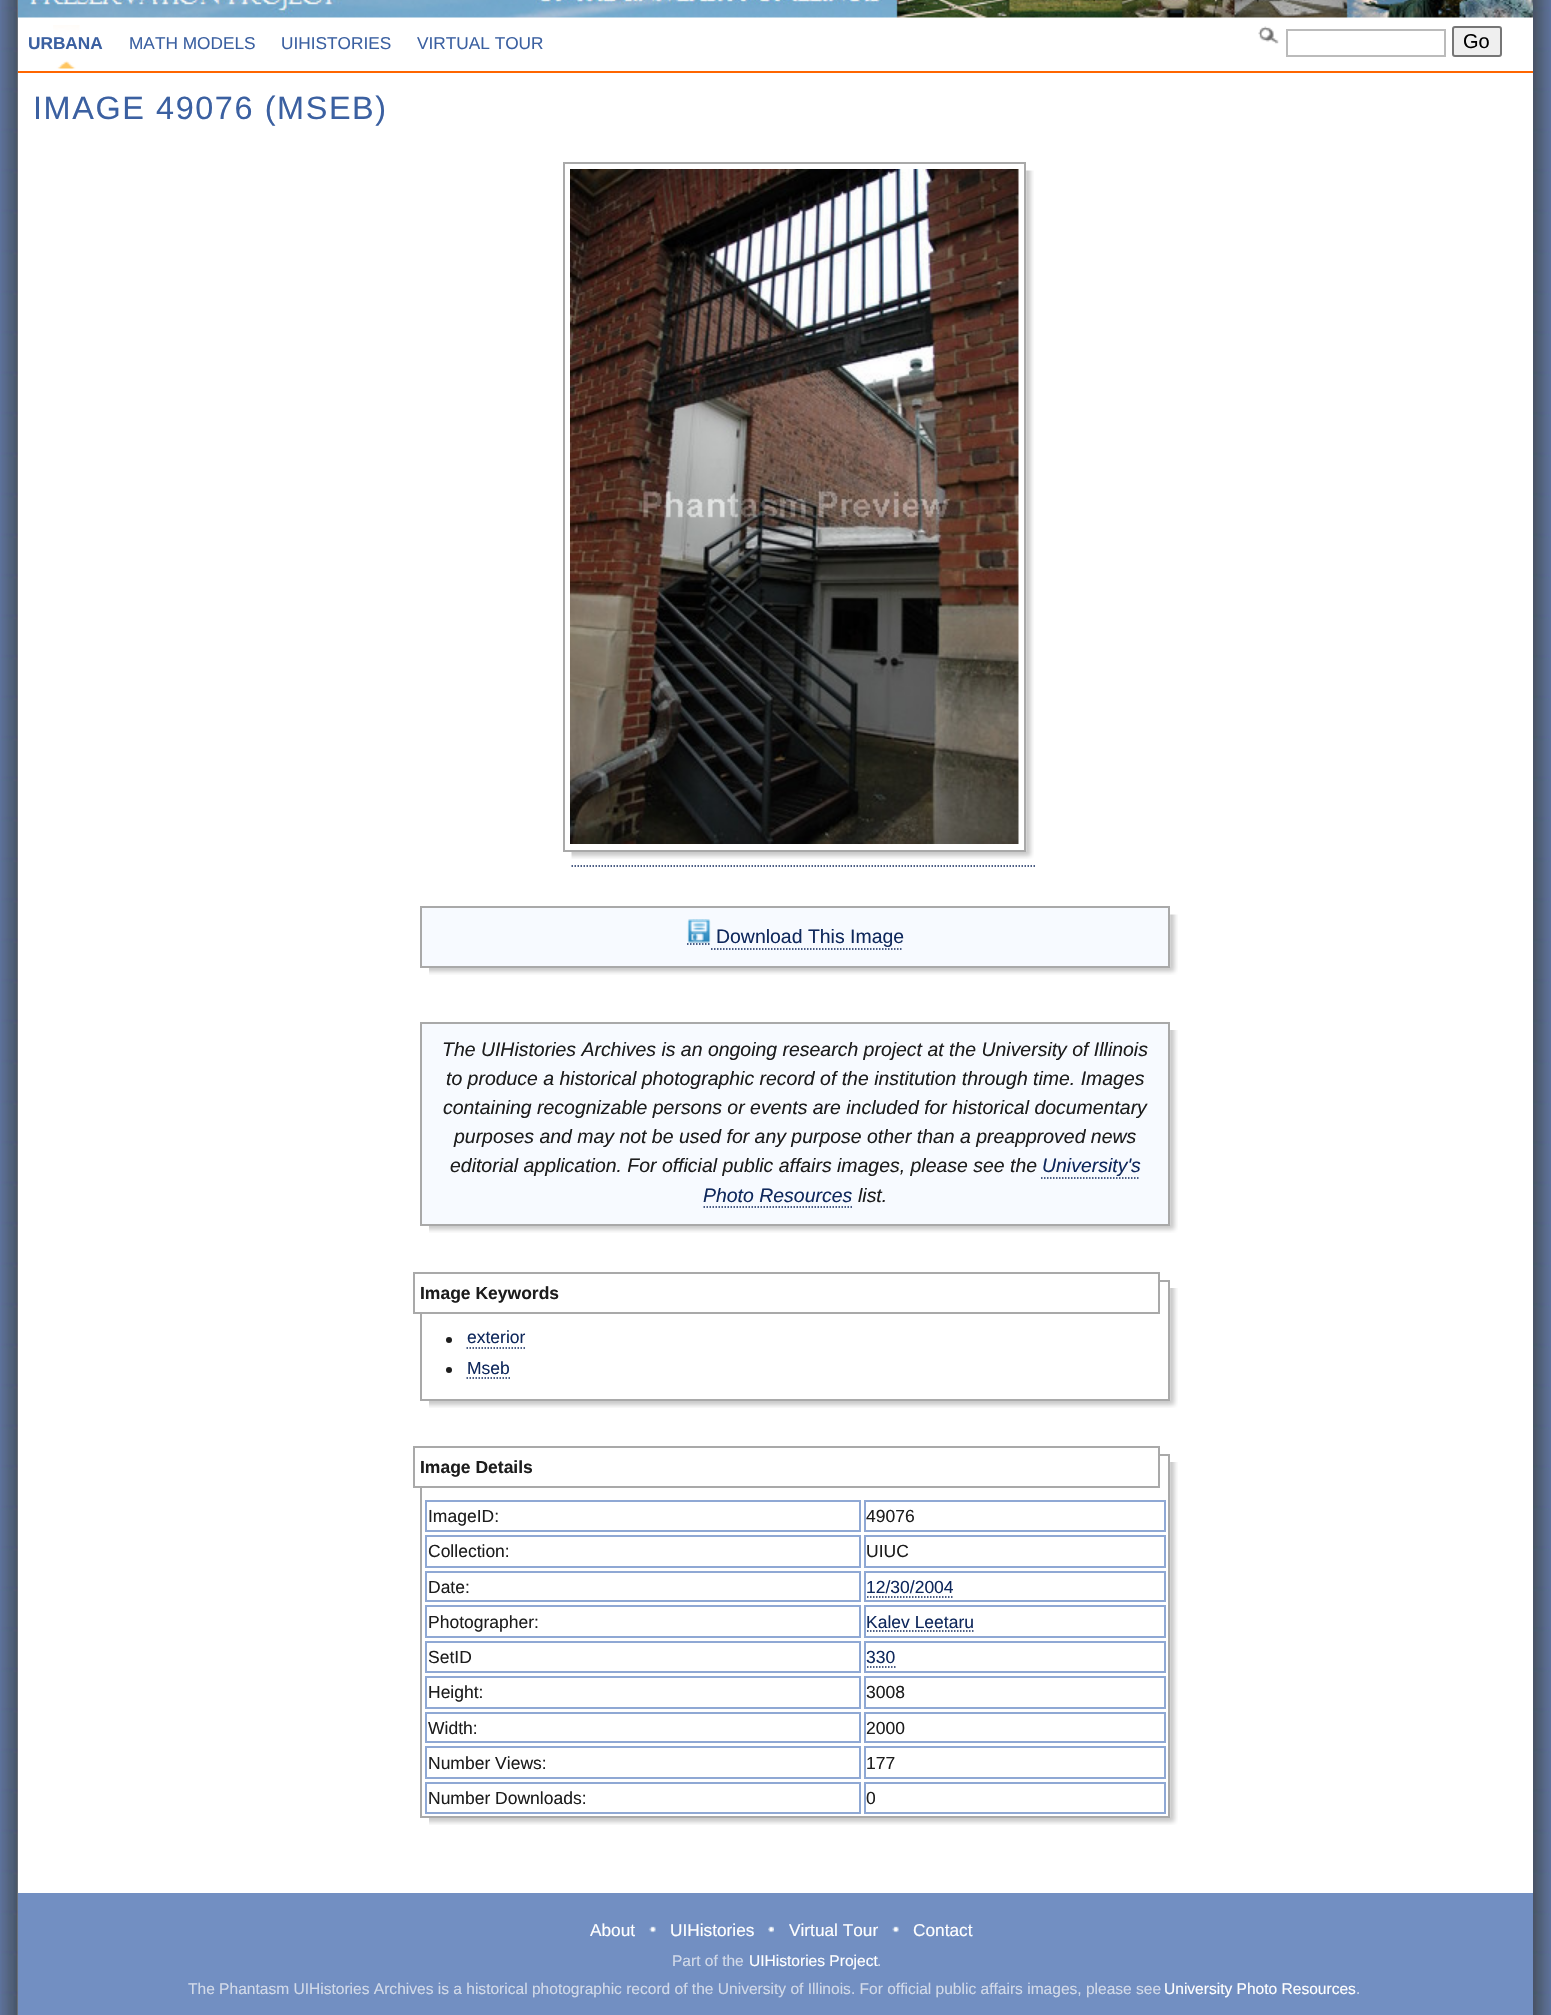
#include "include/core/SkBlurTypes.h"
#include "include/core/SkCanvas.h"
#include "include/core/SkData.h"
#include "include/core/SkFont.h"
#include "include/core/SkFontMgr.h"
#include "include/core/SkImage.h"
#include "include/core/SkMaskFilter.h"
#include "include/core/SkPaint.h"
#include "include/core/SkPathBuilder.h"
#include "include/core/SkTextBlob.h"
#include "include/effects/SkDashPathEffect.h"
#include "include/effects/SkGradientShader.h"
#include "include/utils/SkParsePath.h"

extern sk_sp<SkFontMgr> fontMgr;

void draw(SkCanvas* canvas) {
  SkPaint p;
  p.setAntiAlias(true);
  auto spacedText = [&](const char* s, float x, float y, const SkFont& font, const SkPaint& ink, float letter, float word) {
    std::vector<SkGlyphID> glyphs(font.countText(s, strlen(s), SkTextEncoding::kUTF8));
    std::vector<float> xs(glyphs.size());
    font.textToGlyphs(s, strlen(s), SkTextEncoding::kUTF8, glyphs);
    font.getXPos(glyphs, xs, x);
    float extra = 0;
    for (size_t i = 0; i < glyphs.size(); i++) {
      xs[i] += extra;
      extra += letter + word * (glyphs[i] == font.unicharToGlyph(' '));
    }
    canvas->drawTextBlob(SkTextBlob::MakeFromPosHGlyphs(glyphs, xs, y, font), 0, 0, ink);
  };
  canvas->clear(SK_ColorWHITE);
  canvas->drawImageRect(SkImages::DeferredFromEncodedData(SkData::MakeFromFileName("images/1.png")), SkRect::MakeLTRB(0, 0, 1551, 2015), SkSamplingOptions());
  p.setColor(SK_ColorWHITE);
  canvas->drawRect(SkRect::MakeLTRB(18, 17, 1533, 1893), p);
  canvas->drawImageRect(SkImages::DeferredFromEncodedData(SkData::MakeFromFileName("images/2.png")), SkRect::MakeLTRB(18, 0, 1533, 18), SkSamplingOptions());
  p.setColor(SkColorSetRGB(255, 102, 0));
  canvas->drawRect(SkRect::MakeLTRB(18, 71, 1533, 73), p);
  canvas->drawImageRect(SkImages::DeferredFromEncodedData(SkData::MakeFromFileName("images/3.png")), SkRect::MakeLTRB(53, 25, 80, 69), SkSamplingOptions());
  canvas->drawImageRect(SkImages::DeferredFromEncodedData(SkData::MakeFromFileName("images/4.png")), SkRect::MakeLTRB(571, 170, 1034, 859), SkSamplingOptions());
  p.setStyle(SkPaint::kStroke_Style);
  p.setStrokeWidth(2);
  p.setColor(SkColorSetRGB(169, 169, 169));
  canvas->drawRect(SkRect::MakeLTRB(564, 163, 1025, 851), p);
  canvas->drawImageRect(SkImages::DeferredFromEncodedData(SkData::MakeFromFileName("images/5.png")), SkRect::MakeLTRB(570, 169, 1019, 844), SkSamplingOptions());
  p.setStrokeWidth(1.5f);
  p.setColor(SkColorSetRGB(15, 40, 92));
  p.setPathEffect(SkDashPathEffect::Make({{1.5f, 1.5f}}, 0));
  canvas->drawPath(SkPathBuilder().moveTo(571.5f, 866).lineTo(1035, 866).detach(), p);
  p.setPathEffect(nullptr);
  canvas->drawImageRect(SkImages::DeferredFromEncodedData(SkData::MakeFromFileName("images/6.png")), SkRect::MakeLTRB(429, 914, 1178, 975), SkSamplingOptions());
  p.setStyle(SkPaint::kFill_Style);
  p.setColor(SkColorSetRGB(247, 250, 255));
  canvas->drawRect(SkRect::MakeLTRB(421, 907, 1169, 967), p);
  p.setStyle(SkPaint::kStroke_Style);
  p.setStrokeWidth(2);
  p.setColor(SkColorSetRGB(169, 169, 169));
  canvas->drawRect(SkRect::MakeLTRB(421, 907, 1169, 967), p);
  canvas->drawImageRect(SkImages::DeferredFromEncodedData(SkData::MakeFromFileName("images/7.png")), SkRect::MakeLTRB(687, 919, 711, 943), SkSamplingOptions());
  p.setStrokeWidth(1.5f);
  p.setColor(SkColorSetRGB(15, 40, 92));
  p.setPathEffect(SkDashPathEffect::Make({{1.5f, 1.5f}}, 0));
  canvas->drawPath(SkPathBuilder().moveTo(687, 944).lineTo(711, 944).detach(), p);
  p.setPathEffect(nullptr);
  p.setPathEffect(SkDashPathEffect::Make({{1.5f, 1.5f}}, 0));
  canvas->drawPath(SkPathBuilder().moveTo(711, 949).lineTo(903, 949).detach(), p);
  p.setPathEffect(nullptr);
  canvas->drawImageRect(SkImages::DeferredFromEncodedData(SkData::MakeFromFileName("images/8.png")), SkRect::MakeLTRB(429, 1030, 1178, 1233), SkSamplingOptions());
  p.setStyle(SkPaint::kFill_Style);
  p.setColor(SkColorSetRGB(247, 250, 255));
  canvas->drawRect(SkRect::MakeLTRB(421, 1023, 1169, 1225), p);
  p.setStyle(SkPaint::kStroke_Style);
  p.setStrokeWidth(2);
  p.setColor(SkColorSetRGB(169, 169, 169));
  canvas->drawRect(SkRect::MakeLTRB(421, 1023, 1169, 1225), p);
  p.setStrokeWidth(1.5f);
  p.setColor(SkColorSetRGB(15, 40, 92));
  p.setPathEffect(SkDashPathEffect::Make({{1.5f, 1.5f}}, 0));
  canvas->drawPath(SkPathBuilder().moveTo(1041, 1178).lineTo(1140, 1178).detach(), p);
  p.setPathEffect(nullptr);
  p.setPathEffect(SkDashPathEffect::Make({{1.5f, 1.5f}}, 0));
  canvas->drawPath(SkPathBuilder().moveTo(703.5f, 1207).lineTo(852, 1207).detach(), p);
  p.setPathEffect(nullptr);
  canvas->drawImageRect(SkImages::DeferredFromEncodedData(SkData::MakeFromFileName("images/9.png")), SkRect::MakeLTRB(429, 1288, 1178, 1408), SkSamplingOptions());
  p.setStrokeWidth(2);
  p.setColor(SkColorSetRGB(169, 169, 169));
  canvas->drawRect(SkRect::MakeLTRB(421, 1281, 1169, 1400), p);
  p.setStyle(SkPaint::kFill_Style);
  p.setColor(SK_ColorWHITE);
  canvas->drawRect(SkRect::MakeLTRB(420, 1280, 1158, 1312), p);
  p.setStyle(SkPaint::kStroke_Style);
  p.setColor(SkColorSetRGB(169, 169, 169));
  canvas->drawRect(SkRect::MakeLTRB(414, 1273, 1159, 1313), p);
  p.setStyle(SkPaint::kFill_Style);
  p.setColor(SkColorSetRGB(29, 29, 29));
  canvas->drawCircle(449, 1340, 3, p);
  p.setStyle(SkPaint::kStroke_Style);
  p.setStrokeWidth(1.5f);
  p.setColor(SkColorSetRGB(15, 40, 92));
  p.setPathEffect(SkDashPathEffect::Make({{1.5f, 1.5f}}, 0));
  canvas->drawPath(SkPathBuilder().moveTo(466.5f, 1348).lineTo(525, 1348).detach(), p);
  p.setPathEffect(nullptr);
  p.setStyle(SkPaint::kFill_Style);
  p.setColor(SkColorSetRGB(29, 29, 29));
  canvas->drawCircle(449, 1370, 3, p);
  p.setStyle(SkPaint::kStroke_Style);
  p.setColor(SkColorSetRGB(15, 40, 92));
  p.setPathEffect(SkDashPathEffect::Make({{1.5f, 1.5f}}, 0));
  canvas->drawPath(SkPathBuilder().moveTo(466.5f, 1378).lineTo(510, 1378).detach(), p);
  p.setPathEffect(nullptr);
  canvas->drawImageRect(SkImages::DeferredFromEncodedData(SkData::MakeFromFileName("images/10.png")), SkRect::MakeLTRB(429, 1462, 1178, 1825), SkSamplingOptions());
  p.setStrokeWidth(2);
  p.setColor(SkColorSetRGB(169, 169, 169));
  canvas->drawRect(SkRect::MakeLTRB(421, 1455, 1169, 1817), p);
  p.setStyle(SkPaint::kFill_Style);
  p.setColor(SK_ColorWHITE);
  canvas->drawRect(SkRect::MakeLTRB(420, 1454, 1158, 1486), p);
  p.setStyle(SkPaint::kStroke_Style);
  p.setColor(SkColorSetRGB(169, 169, 169));
  canvas->drawRect(SkRect::MakeLTRB(414, 1447, 1159, 1487), p);
  p.setColor(SkColorSetRGB(143, 168, 212));
  canvas->drawRect(SkRect::MakeLTRB(426, 1501, 860, 1531), p);
  canvas->drawRect(SkRect::MakeLTRB(865, 1501, 1165, 1531), p);
  canvas->drawRect(SkRect::MakeLTRB(426, 1536, 860, 1567), p);
  canvas->drawRect(SkRect::MakeLTRB(865, 1536, 1165, 1567), p);
  canvas->drawRect(SkRect::MakeLTRB(426, 1572, 860, 1601), p);
  canvas->drawRect(SkRect::MakeLTRB(865, 1572, 1165, 1601), p);
  p.setStrokeWidth(1.5f);
  p.setColor(SkColorSetRGB(15, 40, 92));
  p.setPathEffect(SkDashPathEffect::Make({{1.5f, 1.5f}}, 0));
  canvas->drawPath(SkPathBuilder().moveTo(867, 1597).lineTo(954, 1597).detach(), p);
  p.setPathEffect(nullptr);
  p.setStrokeWidth(2);
  p.setColor(SkColorSetRGB(143, 168, 212));
  canvas->drawRect(SkRect::MakeLTRB(426, 1606, 860, 1637), p);
  canvas->drawRect(SkRect::MakeLTRB(865, 1606, 1165, 1637), p);
  p.setStrokeWidth(1.5f);
  p.setColor(SkColorSetRGB(15, 40, 92));
  p.setPathEffect(SkDashPathEffect::Make({{1.5f, 1.5f}}, 0));
  canvas->drawPath(SkPathBuilder().moveTo(867, 1631).lineTo(975, 1631).detach(), p);
  p.setPathEffect(nullptr);
  p.setStrokeWidth(2);
  p.setColor(SkColorSetRGB(143, 168, 212));
  canvas->drawRect(SkRect::MakeLTRB(426, 1642, 860, 1672), p);
  canvas->drawRect(SkRect::MakeLTRB(865, 1642, 1165, 1672), p);
  p.setStrokeWidth(1.5f);
  p.setColor(SkColorSetRGB(15, 40, 92));
  p.setPathEffect(SkDashPathEffect::Make({{1.5f, 1.5f}}, 0));
  canvas->drawPath(SkPathBuilder().moveTo(867, 1667).lineTo(895.5f, 1667).detach(), p);
  p.setPathEffect(nullptr);
  p.setStrokeWidth(2);
  p.setColor(SkColorSetRGB(143, 168, 212));
  canvas->drawRect(SkRect::MakeLTRB(426, 1677, 860, 1708), p);
  canvas->drawRect(SkRect::MakeLTRB(865, 1677, 1165, 1708), p);
  canvas->drawRect(SkRect::MakeLTRB(426, 1713, 860, 1742), p);
  canvas->drawRect(SkRect::MakeLTRB(865, 1713, 1165, 1742), p);
  canvas->drawRect(SkRect::MakeLTRB(426, 1747, 860, 1778), p);
  canvas->drawRect(SkRect::MakeLTRB(865, 1747, 1165, 1778), p);
  canvas->drawRect(SkRect::MakeLTRB(426, 1783, 860, 1813), p);
  canvas->drawRect(SkRect::MakeLTRB(865, 1783, 1165, 1813), p);
  p.setStyle(SkPaint::kFill_Style);
  p.setColor(SkColorSetRGB(114, 143, 194));
  canvas->drawRect(SkRect::MakeLTRB(18, 1893, 1533, 2015), p);
  canvas->drawImageRect(SkImages::DeferredFromEncodedData(SkData::MakeFromFileName("images/11.png")), SkRect::MakeLTRB(649, 1926, 656, 1933), SkSamplingOptions());
  canvas->drawImageRect(SkImages::DeferredFromEncodedData(SkData::MakeFromFileName("images/12.png")), SkRect::MakeLTRB(768, 1926, 774, 1933), SkSamplingOptions());
  canvas->drawImageRect(SkImages::DeferredFromEncodedData(SkData::MakeFromFileName("images/13.png")), SkRect::MakeLTRB(892, 1926, 899, 1933), SkSamplingOptions());
  canvas->drawImageRect(SkImages::DeferredFromEncodedData(SkData::MakeFromFileName("images/14.png")), SkRect::MakeLTRB(1258, 26, 1279, 44), SkSamplingOptions());
  p.setStyle(SkPaint::kStroke_Style);
  p.setColor(SkColorSetRGB(187, 187, 187));
  canvas->drawRect(SkRect::MakeLTRB(1287, 30, 1445, 56), p);
  p.setStyle(SkPaint::kFill_Style);
  p.setColor(SkColorSetRGB(239, 239, 239));
  canvas->drawRoundRect(SkRect::MakeLTRB(1453, 27, 1501, 56), 2, 2, p);
  p.setStyle(SkPaint::kStroke_Style);
  p.setColor(SkColorSetRGB(118, 118, 118));
  canvas->drawRoundRect(SkRect::MakeLTRB(1453, 27, 1501, 56), 2, 2, p);
  SkFont font1(fontMgr->matchFamilyStyle("Liberation Sans", SkFontStyle::Bold()), 17.25f);
  font1.setSubpixel(true);
  p.setStyle(SkPaint::kFill_Style);
  p.setColor(SkColorSetRGB(59, 96, 161));
  canvas->drawString("URBANA", 28, 49, font1, p);
  SkFont font2(fontMgr->matchFamilyStyle("Liberation Sans", SkFontStyle::Normal()), 17.25f);
  font2.setSubpixel(true);
  canvas->drawString("MATH MODELS", 129, 49, font2, p);
  canvas->drawString("UIHISTORIES", 281, 49, font2, p);
  canvas->drawString("VIRTUAL TOUR", 417, 49, font2, p);
  SkFont font3(fontMgr->matchFamilyStyle("Liberation Sans", SkFontStyle::Normal()), 32.4f);
  font3.setSubpixel(true);
  spacedText("IMAGE 49076 (MSEB)", 33, 119, font3, p, 1.6f, 0);
  SkFont font4(fontMgr->matchFamilyStyle("Liberation Sans", SkFontStyle::Normal()), 19.45f);
  font4.setSubpixel(true);
  p.setColor(SkColorSetRGB(15, 40, 92));
  canvas->drawString("Download This Image", 716, 943, font4, p);
  SkFont font5(fontMgr->matchFamilyStyle("Liberation Sans", SkFontStyle::Italic()), 19.45f);
  font5.setSubpixel(true);
  p.setColor(SkColorSetRGB(29, 29, 29));
  canvas->drawString("The UIHistories Archives is an ongoing research project at the University of Illinois", 442, 1056, font5, p);
  canvas->drawString("to produce a historical photographic record of the institution through time. Images", 446, 1085, font5, p);
  canvas->drawString("containing recognizable persons or events are included for historical documentary", 443, 1114, font5, p);
  canvas->drawString("purposes and may not be used for any purpose other than a preapproved news", 454, 1143, font5, p);
  canvas->drawString("editorial application. For official public affairs images, please see the", 450, 1172, font5, p);
  p.setColor(SkColorSetRGB(15, 40, 92));
  canvas->drawString("University's", 1042, 1172, font5, p);
  canvas->drawString("Photo Resources", 703, 1202, font5, p);
  p.setColor(SkColorSetRGB(29, 29, 29));
  canvas->drawString("list.", 858, 1202, font5, p);
  SkFont font6(fontMgr->matchFamilyStyle("Liberation Sans", SkFontStyle::Bold()), 17.5f);
  font6.setSubpixel(true);
  canvas->drawString("Image Keywords", 420, 1299, font6, p);
  SkFont font7(fontMgr->matchFamilyStyle("Liberation Sans", SkFontStyle::Normal()), 17.5f);
  font7.setSubpixel(true);
  p.setColor(SkColorSetRGB(15, 40, 92));
  canvas->drawString("exterior", 467, 1343, font7, p);
  canvas->drawString("Mseb", 467, 1374, font7, p);
  p.setColor(SkColorSetRGB(29, 29, 29));
  canvas->drawString("Image Details", 420, 1473, font6, p);
  canvas->drawString("ImageID:", 428, 1522, font7, p);
  canvas->drawString("49076", 866, 1522, font7, p);
  canvas->drawString("Collection:", 428, 1557, font7, p);
  canvas->drawString("UIUC", 866, 1557, font7, p);
  canvas->drawString("Date:", 428, 1593, font7, p);
  p.setColor(SkColorSetRGB(15, 40, 92));
  canvas->drawString("12/30/2004", 866, 1593, font7, p);
  p.setColor(SkColorSetRGB(29, 29, 29));
  canvas->drawString("Photographer:", 428, 1628, font7, p);
  p.setColor(SkColorSetRGB(15, 40, 92));
  canvas->drawString("Kalev Leetaru", 866, 1628, font7, p);
  p.setColor(SkColorSetRGB(29, 29, 29));
  canvas->drawString("SetID", 428, 1663, font7, p);
  p.setColor(SkColorSetRGB(15, 40, 92));
  canvas->drawString("330", 866, 1663, font7, p);
  p.setColor(SkColorSetRGB(29, 29, 29));
  canvas->drawString("Height:", 428, 1698, font7, p);
  canvas->drawString("3008", 866, 1698, font7, p);
  canvas->drawString("Width:", 428, 1734, font7, p);
  canvas->drawString("2000", 866, 1734, font7, p);
  canvas->drawString("Number Views:", 428, 1769, font7, p);
  canvas->drawString("177", 866, 1769, font7, p);
  canvas->drawString("Number Downloads:", 428, 1804, font7, p);
  canvas->drawString("0", 866, 1804, font7, p);
  p.setColor(SK_ColorWHITE);
  canvas->drawString("About", 590, 1936, font2, p);
  canvas->drawString("UIHistories", 670, 1936, font2, p);
  canvas->drawString("Virtual Tour", 789, 1936, font2, p);
  canvas->drawString("Contact", 913, 1936, font2, p);
  SkFont font8(fontMgr->matchFamilyStyle("Liberation Sans", SkFontStyle::Normal()), 15.55f);
  font8.setSubpixel(true);
  p.setColor(SkColorSetRGB(210, 218, 233));
  canvas->drawString("Part of the", 672, 1966, font8, p);
  p.setColor(SK_ColorWHITE);
  canvas->drawString("UIHistories Project", 749, 1966, font8, p);
  p.setColor(SkColorSetRGB(210, 218, 233));
  canvas->drawString(".", 877, 1966, font8, p);
  canvas->drawString("The Phantasm UIHistories Archives is a historical photographic record of the University of Illinois. For official public affairs images, please see", 188, 1994, font8, p);
  p.setColor(SK_ColorWHITE);
  canvas->drawString("University Photo Resources", 1164, 1994, font8, p);
  p.setColor(SkColorSetRGB(210, 218, 233));
  canvas->drawString(".", 1356, 1994, font8, p);
  SkFont font9(fontMgr->matchFamilyStyle("Liberation Sans", SkFontStyle::Normal()), 20);
  font9.setSubpixel(true);
  p.setColor(SK_ColorBLACK);
  canvas->drawString("Go", 1463, 48, font9, p);
}
